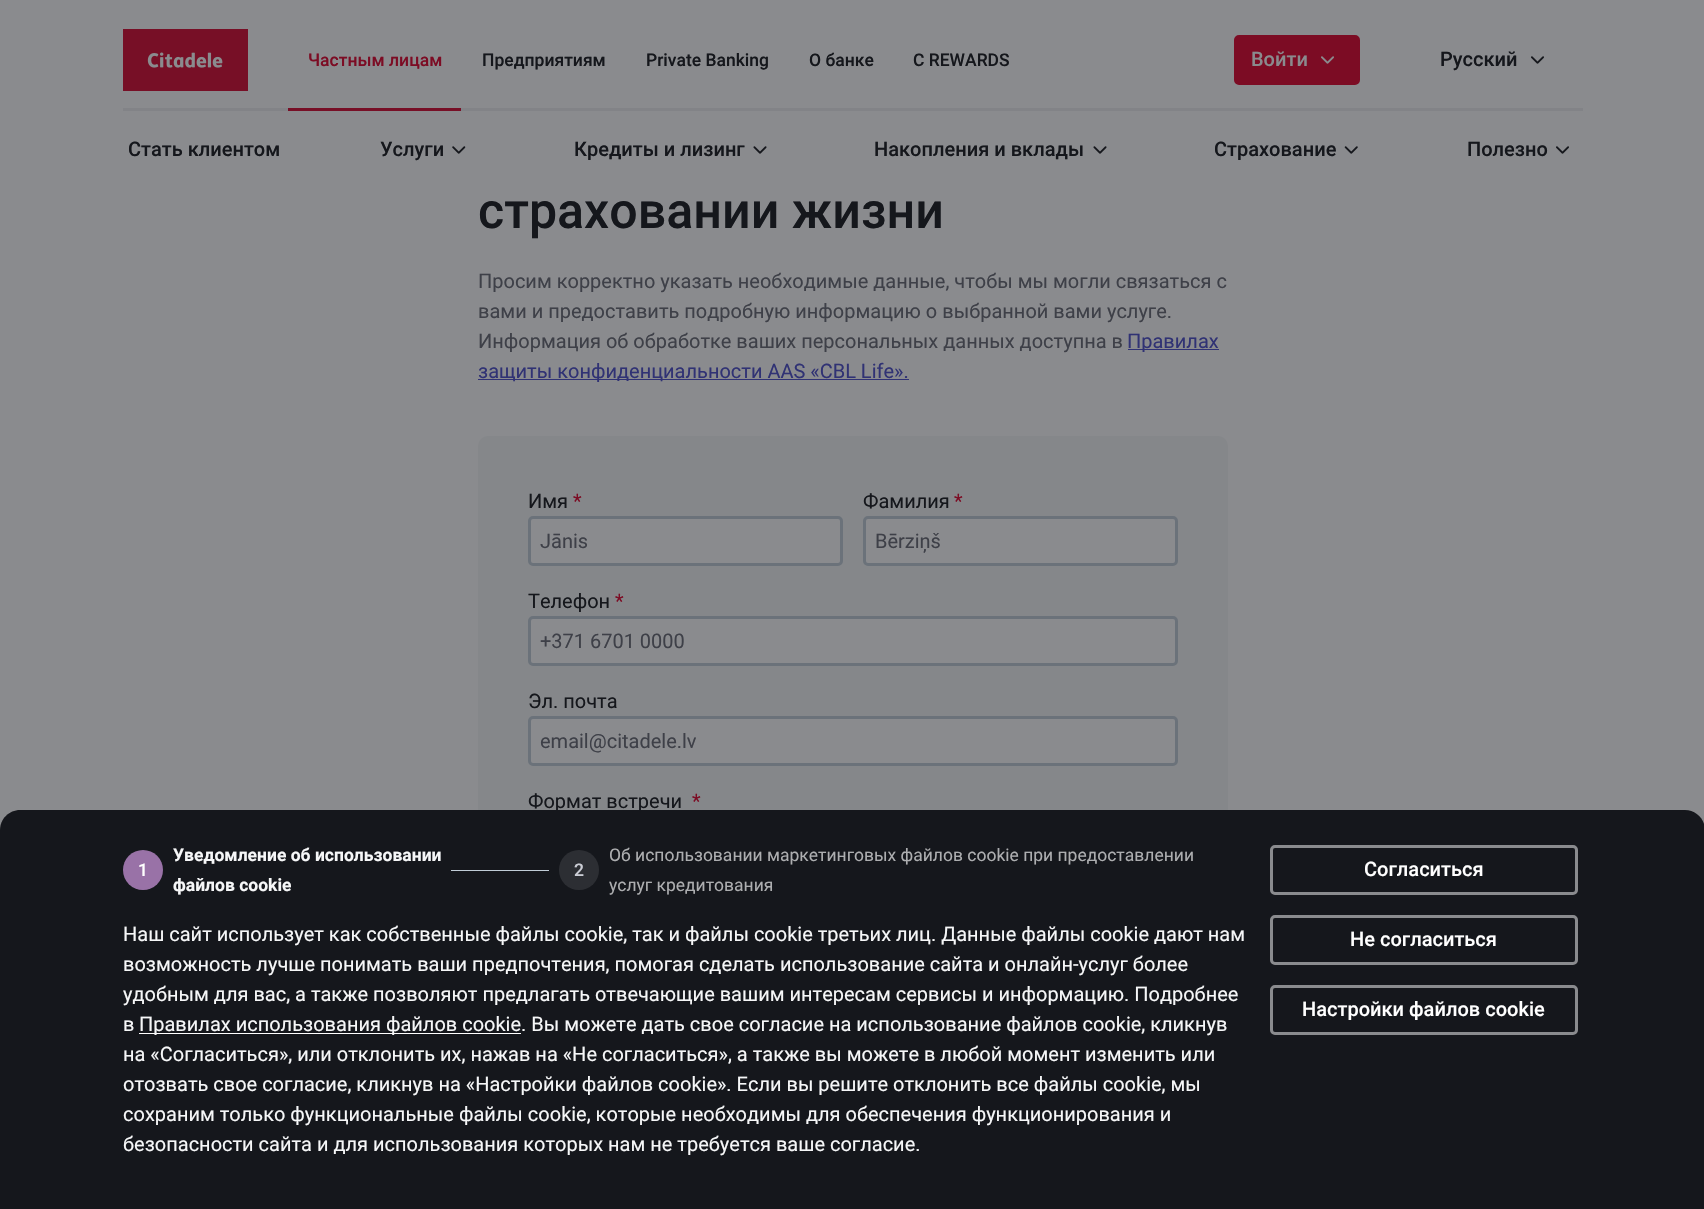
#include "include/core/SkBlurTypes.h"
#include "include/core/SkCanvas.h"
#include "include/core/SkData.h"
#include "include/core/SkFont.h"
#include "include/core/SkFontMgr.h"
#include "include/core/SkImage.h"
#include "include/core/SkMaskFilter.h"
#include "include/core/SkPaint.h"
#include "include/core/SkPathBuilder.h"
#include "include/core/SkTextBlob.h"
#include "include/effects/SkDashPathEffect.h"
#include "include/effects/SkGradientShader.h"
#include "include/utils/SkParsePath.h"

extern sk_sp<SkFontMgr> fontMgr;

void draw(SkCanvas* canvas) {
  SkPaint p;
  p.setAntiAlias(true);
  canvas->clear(SkColorSetRGB(138, 139, 142));
  p.setColor(SkColorSetRGB(130, 131, 135));
  canvas->drawRect(SkRect::MakeLTRB(123, 108, 1583, 111), p);
  canvas->drawImageRect(SkImages::DeferredFromEncodedData(SkData::MakeFromFileName("images/1.png")), SkRect::MakeLTRB(123, 29, 248, 91), SkSamplingOptions());
  p.setColor(SkColorSetRGB(119, 15, 38));
  canvas->drawRect(SkRect::MakeLTRB(288, 108, 461, 111), p);
  p.setColor(SkColorSetRGB(124, 12, 36));
  canvas->drawRoundRect(SkRect::MakeLTRB(1235.5f, 36.5f, 1358.5f, 83.5f), 3.5f, 3.5f, p);
  p.setStyle(SkPaint::kStroke_Style);
  p.setStrokeWidth(3);
  canvas->drawRoundRect(SkRect::MakeLTRB(1235.5f, 36.5f, 1358.5f, 83.5f), 3.5f, 3.5f, p);
  canvas->drawImageRect(SkImages::DeferredFromEncodedData(SkData::MakeFromFileName("images/2.png")), SkRect::MakeLTRB(1321, 56, 1334, 64), SkSamplingOptions());
  canvas->drawImageRect(SkImages::DeferredFromEncodedData(SkData::MakeFromFileName("images/3.png")), SkRect::MakeLTRB(1531, 56, 1544, 64), SkSamplingOptions());
  canvas->drawImageRect(SkImages::DeferredFromEncodedData(SkData::MakeFromFileName("images/4.png")), SkRect::MakeLTRB(452, 146, 466, 154), SkSamplingOptions());
  canvas->drawImageRect(SkImages::DeferredFromEncodedData(SkData::MakeFromFileName("images/5.png")), SkRect::MakeLTRB(753, 146, 767, 154), SkSamplingOptions());
  canvas->drawImageRect(SkImages::DeferredFromEncodedData(SkData::MakeFromFileName("images/5.png")), SkRect::MakeLTRB(1093, 146, 1107, 154), SkSamplingOptions());
  canvas->drawImageRect(SkImages::DeferredFromEncodedData(SkData::MakeFromFileName("images/6.png")), SkRect::MakeLTRB(1344, 146, 1358, 154), SkSamplingOptions());
  canvas->drawImageRect(SkImages::DeferredFromEncodedData(SkData::MakeFromFileName("images/3.png")), SkRect::MakeLTRB(1556, 146, 1569, 154), SkSamplingOptions());
  p.setStyle(SkPaint::kFill_Style);
  p.setColor(SkColorSetRGB(48, 50, 116));
  canvas->drawRect(SkRect::MakeLTRB(1128, 349, 1219, 350), p);
  canvas->drawRect(SkRect::MakeLTRB(478, 379, 909, 380), p);
  p.setColor(SkColorSetRGB(133, 135, 138));
  canvas->drawRoundRect(SkRect::MakeLTRB(478, 436, 1228, 1016), 10, 10, p);
  p.setColor(SkColorSetRGB(138, 139, 142));
  canvas->drawRoundRect(SkRect::MakeLTRB(529.5f, 517.5f, 841.5f, 564.5f), 3.5f, 3.5f, p);
  p.setStyle(SkPaint::kStroke_Style);
  p.setColor(SkColorSetRGB(107, 114, 122));
  canvas->drawRoundRect(SkRect::MakeLTRB(529.5f, 517.5f, 841.5f, 564.5f), 3.5f, 3.5f, p);
  p.setStyle(SkPaint::kFill_Style);
  p.setColor(SkColorSetRGB(138, 139, 142));
  canvas->drawRoundRect(SkRect::MakeLTRB(864.5f, 517.5f, 1176.5f, 564.5f), 3.5f, 3.5f, p);
  p.setStyle(SkPaint::kStroke_Style);
  p.setColor(SkColorSetRGB(107, 114, 122));
  canvas->drawRoundRect(SkRect::MakeLTRB(864.5f, 517.5f, 1176.5f, 564.5f), 3.5f, 3.5f, p);
  p.setStyle(SkPaint::kFill_Style);
  p.setColor(SkColorSetRGB(138, 139, 142));
  canvas->drawRoundRect(SkRect::MakeLTRB(529.5f, 617.5f, 1176.5f, 664.5f), 3.5f, 3.5f, p);
  p.setStyle(SkPaint::kStroke_Style);
  p.setColor(SkColorSetRGB(107, 114, 122));
  canvas->drawRoundRect(SkRect::MakeLTRB(529.5f, 617.5f, 1176.5f, 664.5f), 3.5f, 3.5f, p);
  p.setStyle(SkPaint::kFill_Style);
  p.setColor(SkColorSetRGB(138, 139, 142));
  canvas->drawRoundRect(SkRect::MakeLTRB(529.5f, 717.5f, 1176.5f, 764.5f), 3.5f, 3.5f, p);
  p.setStyle(SkPaint::kStroke_Style);
  p.setColor(SkColorSetRGB(107, 114, 122));
  canvas->drawRoundRect(SkRect::MakeLTRB(529.5f, 717.5f, 1176.5f, 764.5f), 3.5f, 3.5f, p);
  p.setStyle(SkPaint::kFill_Style);
  p.setColor(SkColorSetRGB(21, 23, 28));
  canvas->drawPath(SkPathBuilder().moveTo(20, 810).lineTo(1685, 810).cubicTo(1696, 810, 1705, 819, 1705, 830).lineTo(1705, 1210).lineTo(0, 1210).lineTo(0, 830).cubicTo(0, 819, 9, 810, 20, 810).close().detach(), p);
  p.setColor(SkColorSetRGB(153, 114, 167));
  canvas->drawCircle(143, 870, 20, p);
  p.setColor(SkColorSetRGB(193, 205, 215));
  canvas->drawRect(SkRect::MakeLTRB(451, 870, 549, 871), p);
  p.setColor(SkColorSetRGB(44, 46, 51));
  canvas->drawCircle(579, 870, 20, p);
  p.setStyle(SkPaint::kStroke_Style);
  p.setColor(SkColorSetRGB(138, 139, 142));
  canvas->drawRoundRect(SkRect::MakeLTRB(1271.5f, 846.5f, 1576.5f, 893.5f), 3.5f, 3.5f, p);
  canvas->drawRoundRect(SkRect::MakeLTRB(1271.5f, 916.5f, 1576.5f, 963.5f), 3.5f, 3.5f, p);
  canvas->drawRoundRect(SkRect::MakeLTRB(1271.5f, 986.5f, 1576.5f, 1033.5f), 3.5f, 3.5f, p);
  p.setStyle(SkPaint::kFill_Style);
  p.setColor(SK_ColorWHITE);
  canvas->drawRect(SkRect::MakeLTRB(139, 1033, 521, 1034), p);
  SkFont font1(fontMgr->matchFamilyStyle("Roboto", SkFontStyle(500, SkFontStyle::kNormal_Width, SkFontStyle::kUpright_Slant)), 17.5f);
  font1.setSubpixel(true);
  p.setColor(SkColorSetRGB(124, 12, 36));
  canvas->drawString("Частным лицaм", 308, 66, font1, p);
  p.setColor(SkColorSetRGB(21, 23, 28));
  canvas->drawString("Предприятиям", 482, 66, font1, p);
  canvas->drawString("Private Banking", 646, 66, font1, p);
  canvas->drawString("О банке", 809, 66, font1, p);
  canvas->drawString("C REWARDS", 913, 66, font1, p);
  SkFont font2(fontMgr->matchFamilyStyle("Roboto", SkFontStyle(500, SkFontStyle::kNormal_Width, SkFontStyle::kUpright_Slant)), 20);
  font2.setSubpixel(true);
  p.setColor(SkColorSetRGB(138, 139, 142));
  canvas->drawString("Войти", 1251, 66, font2, p);
  p.setColor(SkColorSetRGB(21, 23, 28));
  canvas->drawString("Русский", 1440, 66, font2, p);
  canvas->drawString("Стать клиентом", 128, 156, font2, p);
  canvas->drawString("Услуги", 380, 156, font2, p);
  canvas->drawString("Кредиты и лизинг", 574, 156, font2, p);
  canvas->drawString("Накопления и вклады", 874, 156, font2, p);
  canvas->drawString("Страхование", 1214, 156, font2, p);
  canvas->drawString("Полезно", 1467, 156, font2, p);
  SkFont font3(fontMgr->matchFamilyStyle("Roboto", SkFontStyle(500, SkFontStyle::kNormal_Width, SkFontStyle::kUpright_Slant)), 50);
  font3.setSubpixel(true);
  canvas->drawString("страховании жизни", 478, 228, font3, p);
  SkFont font4(fontMgr->matchFamilyStyle("Roboto", SkFontStyle::Normal()), 20);
  font4.setSubpixel(true);
  p.setColor(SkColorSetRGB(62, 64, 72));
  canvas->drawString("Просим корректно указать необходимые данные, чтобы мы могли связаться с", 478, 288, font4, p);
  canvas->drawString("вами и предоставить подробную информацию о выбранной вами услуге.", 478, 318, font4, p);
  canvas->drawString("Информация об обработке ваших персональных данных доступна в", 478, 348, font4, p);
  p.setColor(SkColorSetRGB(48, 50, 116));
  canvas->drawString("Правилах", 1127, 348, font4, p);
  canvas->drawString("защиты конфиденциальности AAS «CBL Life».", 478, 378, font4, p);
  p.setColor(SkColorSetRGB(21, 23, 28));
  canvas->drawString("Имя", 528, 508, font4, p);
  p.setColor(SkColorSetRGB(124, 12, 36));
  canvas->drawString("*", 573, 508, font4, p);
  p.setColor(SkColorSetRGB(62, 64, 72));
  canvas->drawString("Jānis", 540, 548, font4, p);
  p.setColor(SkColorSetRGB(21, 23, 28));
  canvas->drawString("Фамилия", 863, 508, font4, p);
  p.setColor(SkColorSetRGB(124, 12, 36));
  canvas->drawString("*", 954, 508, font4, p);
  p.setColor(SkColorSetRGB(62, 64, 72));
  canvas->drawString("Bērziņš", 875, 548, font4, p);
  p.setColor(SkColorSetRGB(21, 23, 28));
  canvas->drawString("Телефон", 528, 608, font4, p);
  p.setColor(SkColorSetRGB(124, 12, 36));
  canvas->drawString("*", 615, 608, font4, p);
  p.setColor(SkColorSetRGB(62, 64, 72));
  canvas->drawString("+371 6701 0000", 540, 648, font4, p);
  p.setColor(SkColorSetRGB(21, 23, 28));
  canvas->drawString("Эл. почта", 528, 708, font4, p);
  p.setColor(SkColorSetRGB(62, 64, 72));
  canvas->drawString("email@citadele.lv", 540, 748, font4, p);
  p.setColor(SkColorSetRGB(21, 23, 28));
  canvas->drawString("Формат встречи", 528, 808, font4, p);
  p.setColor(SkColorSetRGB(124, 12, 36));
  canvas->drawString("*", 692, 808, font4, p);
  p.setColor(SK_ColorWHITE);
  canvas->drawString("1", 138, 876, font1, p);
  SkFont font5(fontMgr->matchFamilyStyle("Roboto", SkFontStyle::Bold()), 17.5f);
  font5.setSubpixel(true);
  p.setColor(SkColorSetRGB(246, 247, 248));
  canvas->drawString("Уведомление об использовании", 173, 861, font5, p);
  canvas->drawString("файлов cookie", 173, 891, font5, p);
  p.setColor(SkColorSetRGB(203, 205, 213));
  canvas->drawString("2", 574, 876, font1, p);
  SkFont font6(fontMgr->matchFamilyStyle("Roboto", SkFontStyle::Normal()), 17.5f);
  font6.setSubpixel(true);
  p.setColor(SkColorSetRGB(173, 174, 176));
  canvas->drawString("Об использовании маркетинговых файлов cookie при предоставлении", 609, 861, font6, p);
  canvas->drawString("услуг кредитования", 609, 891, font6, p);
  p.setColor(SK_ColorWHITE);
  canvas->drawString("Согласиться", 1364, 876, font2, p);
  canvas->drawString("Не согласиться", 1350, 946, font2, p);
  canvas->drawString("Настройки файлов cookie", 1302, 1016, font2, p);
  p.setColor(SkColorSetRGB(246, 247, 248));
  canvas->drawString("Наш сайт использует как собственные файлы cookie, так и файлы cookie третьих лиц. Данные файлы cookie дают нам", 123, 941, font4, p);
  canvas->drawString("возможность лучше понимать ваши предпочтения, помогая сделать использование сайта и онлайн-услуг более", 123, 971, font4, p);
  canvas->drawString("удобным для вас, а также позволяют предлагать отвечающие вашим интересам сервисы и информацию. Подробнее", 123, 1001, font4, p);
  canvas->drawString("в", 123, 1031, font4, p);
  canvas->drawString("Правилах использования файлов cookie. Вы можете дать свое согласие на использование файлов cookie, кликнув", 139, 1031, font4, p);
  canvas->drawString("на «Согласиться», или отклонить их, нажав на «Не согласиться», а также вы можете в любой момент изменить или", 123, 1061, font4, p);
  canvas->drawString("отозвать свое согласие, кликнув на «Настройки файлов cookie». Если вы решите отклонить все файлы cookie, мы", 123, 1091, font4, p);
  canvas->drawString("сохраним только функциональные файлы cookie, которые необходимы для обеспечения функционирования и", 123, 1121, font4, p);
  canvas->drawString("безопасности сайта и для использования которых нам не требуется ваше согласие.", 123, 1151, font4, p);
}
